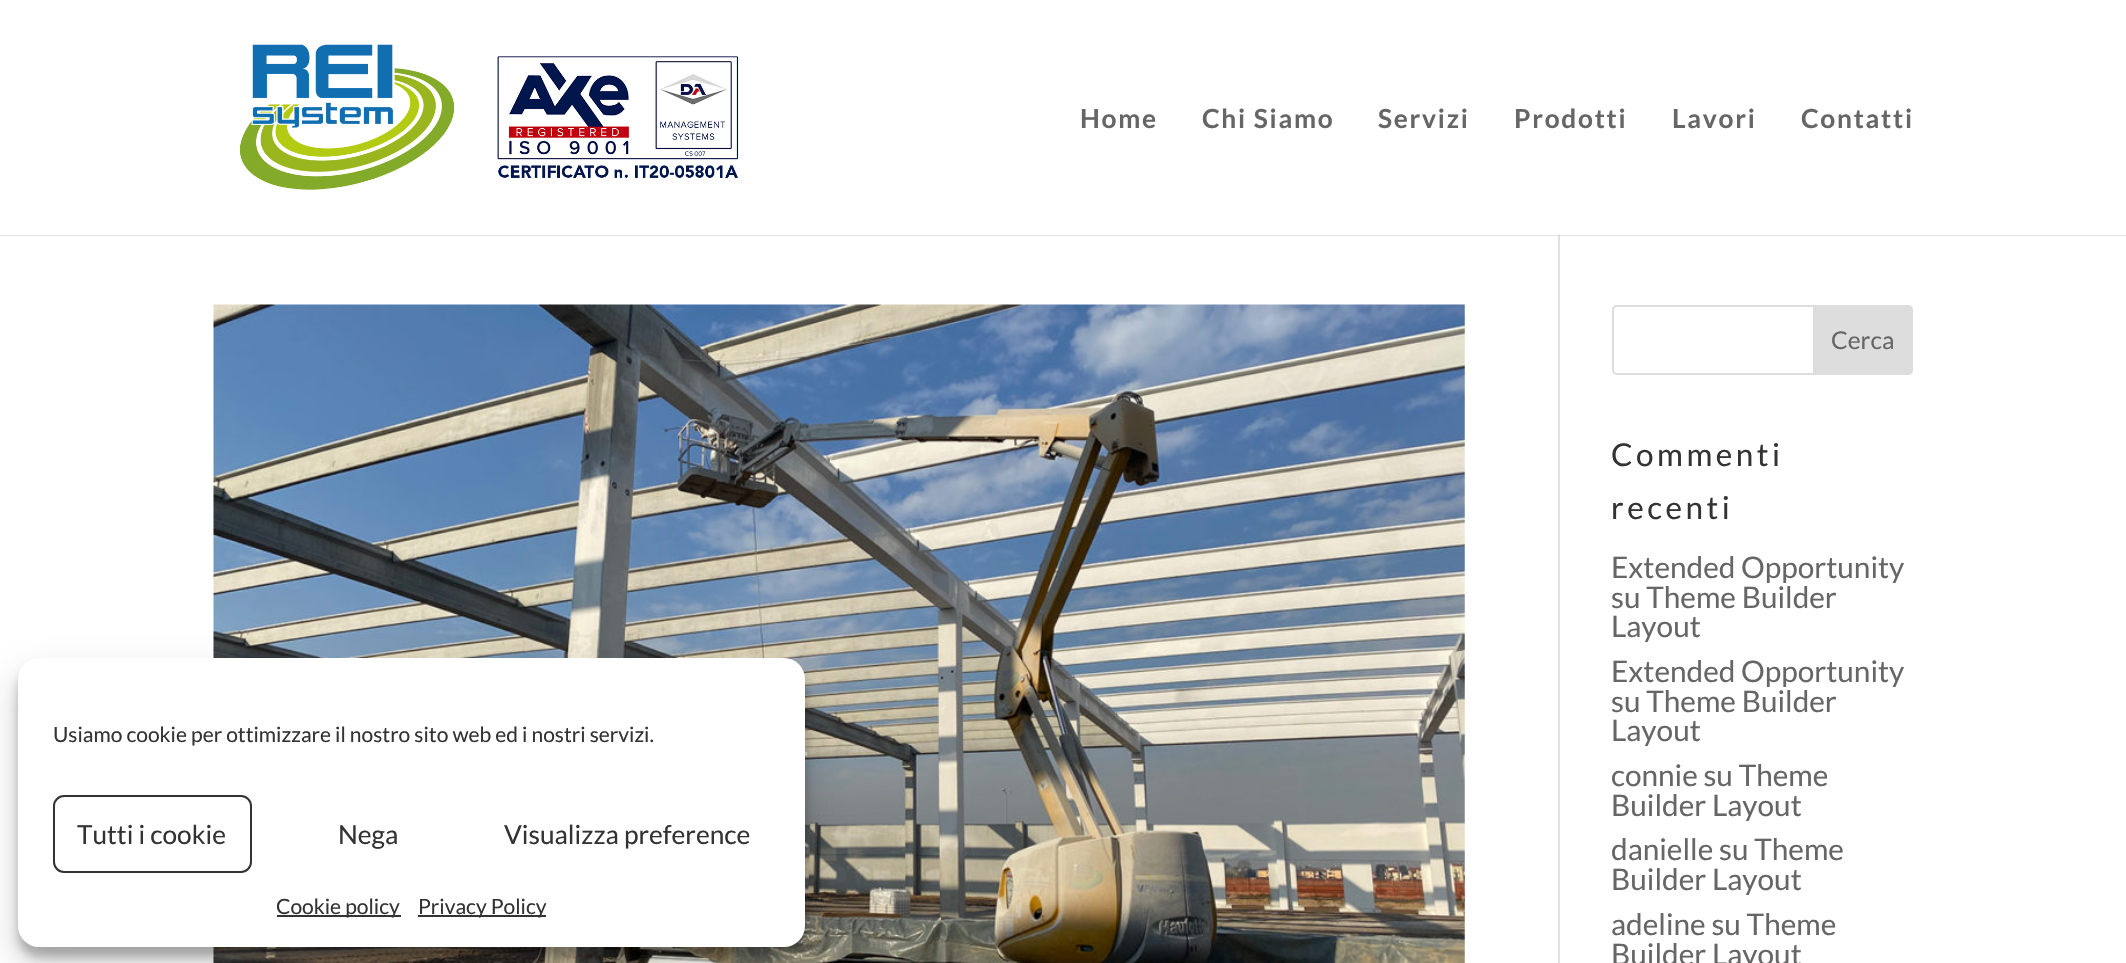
#include "include/core/SkBlurTypes.h"
#include "include/core/SkCanvas.h"
#include "include/core/SkData.h"
#include "include/core/SkFont.h"
#include "include/core/SkFontMgr.h"
#include "include/core/SkImage.h"
#include "include/core/SkMaskFilter.h"
#include "include/core/SkPaint.h"
#include "include/core/SkPathBuilder.h"
#include "include/core/SkTextBlob.h"
#include "include/effects/SkDashPathEffect.h"
#include "include/effects/SkGradientShader.h"
#include "include/utils/SkParsePath.h"

extern sk_sp<SkFontMgr> fontMgr;

void draw(SkCanvas* canvas) {
  SkPaint p;
  p.setAntiAlias(true);
  auto spacedText = [&](const char* s, float x, float y, const SkFont& font, const SkPaint& ink, float letter, float word) {
    std::vector<SkGlyphID> glyphs(font.countText(s, strlen(s), SkTextEncoding::kUTF8));
    std::vector<float> xs(glyphs.size());
    font.textToGlyphs(s, strlen(s), SkTextEncoding::kUTF8, glyphs);
    font.getXPos(glyphs, xs, x);
    float extra = 0;
    for (size_t i = 0; i < glyphs.size(); i++) {
      xs[i] += extra;
      extra += letter + word * (glyphs[i] == font.unicharToGlyph(' '));
    }
    canvas->drawTextBlob(SkTextBlob::MakeFromPosHGlyphs(glyphs, xs, y, font), 0, 0, ink);
  };
  canvas->clear(SK_ColorWHITE);
  p.setColor(SkColorSetRGB(230, 230, 230));
  canvas->drawRect(SkRect::MakeLTRB(0, 235, 2126, 236), p);
  canvas->drawImageRect(SkImages::DeferredFromEncodedData(SkData::MakeFromFileName("images/2.png")), SkRect::MakeLTRB(213, 304, 1465, 963), SkSamplingOptions());
  p.setColor(SkColorSetARGB(59, 0, 0, 0));
  p.setMaskFilter(SkMaskFilter::MakeBlur(kNormal_SkBlurStyle, 5));
  canvas->drawRoundRect(SkRect::MakeLTRB(18, 669, 805, 957), 21, 21, p);
  p.setMaskFilter(nullptr);
  p.setColor(SkColorSetARGB(48, 0, 0, 0));
  p.setMaskFilter(SkMaskFilter::MakeBlur(kNormal_SkBlurStyle, 17.5f));
  canvas->drawRoundRect(SkRect::MakeLTRB(18, 676, 805, 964), 21, 21, p);
  p.setMaskFilter(nullptr);
  p.setColor(SK_ColorWHITE);
  canvas->drawRoundRect(SkRect::MakeLTRB(18, 658, 805, 947), 21, 21, p);
  p.setStyle(SkPaint::kStroke_Style);
  p.setStrokeWidth(2);
  p.setColor(SkColorSetRGB(51, 51, 51));
  canvas->drawRoundRect(SkRect::MakeLTRB(54, 796, 251, 872), 10, 10, p);
  p.setStyle(SkPaint::kFill_Style);
  canvas->drawRect(SkRect::MakeLTRB(277, 915, 401, 917), p);
  canvas->drawRect(SkRect::MakeLTRB(418, 915, 546, 917), p);
  canvas->drawImageRect(SkImages::DeferredFromEncodedData(SkData::MakeFromFileName("images/1.png")), SkRect::MakeLTRB(240, 44, 739, 190), SkSamplingOptions());
  p.setColor(SkColorSetRGB(226, 226, 226));
  canvas->drawRect(SkRect::MakeLTRB(1558, 236, 1560, 963), p);
  p.setColor(SkColorSetRGB(203, 203, 203));
  canvas->drawRect(SkRect::MakeLTRB(1558, 235, 1560, 236), p);
  p.setStyle(SkPaint::kStroke_Style);
  p.setColor(SkColorSetRGB(221, 221, 221));
  canvas->drawRoundRect(SkRect::MakeLTRB(1613, 306, 1912, 374), 4, 4, p);
  p.setStyle(SkPaint::kFill_Style);
  canvas->drawPath(SkPathBuilder().moveTo(1814, 306).lineTo(1908, 306).cubicTo(1910, 306, 1912, 308, 1912, 310).lineTo(1912, 370).cubicTo(1912, 372, 1910, 374, 1908, 374).lineTo(1814, 374).close().detach(), p);
  p.setStyle(SkPaint::kStroke_Style);
  canvas->drawPath(SkPathBuilder().moveTo(1814, 306).lineTo(1908, 306).cubicTo(1910, 306, 1912, 308, 1912, 310).lineTo(1912, 370).cubicTo(1912, 372, 1910, 374, 1908, 374).lineTo(1814, 374).close().detach(), p);
  SkFont font1(fontMgr->matchFamilyStyle("Lato", SkFontStyle::Normal()), 21);
  font1.setSubpixel(true);
  p.setStyle(SkPaint::kFill_Style);
  p.setColor(SkColorSetRGB(51, 51, 51));
  canvas->drawString("Usiamo cookie per ottimizzare il nostro sito web ed i nostri servizi.", 53, 742, font1, p);
  SkFont font2(fontMgr->matchFamilyStyle("Lato", SkFontStyle::Normal()), 26.25f);
  font2.setSubpixel(true);
  canvas->drawString("Tutti i cookie", 77, 844, font2, p);
  canvas->drawString("Nega", 338, 844, font2, p);
  canvas->drawString("Visualizza preference", 504, 844, font2, p);
  canvas->drawString("Cookie policy", 276, 914, font1, p);
  canvas->drawString("Privacy Policy", 418, 914, font1, p);
  SkFont font3(fontMgr->matchFamilyStyle("Lato", SkFontStyle::Bold()), 26.25f);
  font3.setSubpixel(true);
  p.setColor(SkColorSetRGB(102, 102, 102));
  spacedText("Home", 1080, 128, font3, p, 1.75f, 0);
  spacedText("Chi Siamo", 1202, 128, font3, p, 1.75f, 0);
  spacedText("Servizi", 1378, 128, font3, p, 1.75f, 0);
  spacedText("Prodotti", 1514, 128, font3, p, 1.75f, 0);
  spacedText("Lavori", 1672, 128, font3, p, 1.75f, 0);
  spacedText("Contatti", 1801, 128, font3, p, 1.75f, 0);
  SkFont font4(fontMgr->matchFamilyStyle("Lato", SkFontStyle::Normal()), 24.5f);
  font4.setSubpixel(true);
  canvas->drawString("Cerca", 1831, 349, font4, p);
  SkFont font5(fontMgr->matchFamilyStyle("Lato", SkFontStyle::Normal()), 31.5f);
  font5.setSubpixel(true);
  p.setColor(SkColorSetRGB(51, 51, 51));
  spacedText("Commenti", 1611, 466, font5, p, 3.5f, 0);
  spacedText("recenti", 1611, 519, font5, p, 3.5f, 0);
  SkFont font6(fontMgr->matchFamilyStyle("Lato", SkFontStyle::Normal()), 29.75f);
  font6.setSubpixel(true);
  p.setColor(SkColorSetRGB(102, 102, 102));
  canvas->drawString("Extended Opportunity", 1611, 578, font6, p);
  canvas->drawString("su Theme Builder", 1611, 608, font6, p);
  canvas->drawString("Layout", 1611, 637, font6, p);
  canvas->drawString("Extended Opportunity", 1611, 682, font6, p);
  canvas->drawString("su Theme Builder", 1611, 712, font6, p);
  canvas->drawString("Layout", 1611, 741, font6, p);
  canvas->drawString("connie su Theme", 1611, 786, font6, p);
  canvas->drawString("Builder Layout", 1611, 816, font6, p);
  canvas->drawString("danielle su Theme", 1611, 860, font6, p);
  canvas->drawString("Builder Layout", 1611, 890, font6, p);
  canvas->drawString("adeline su Theme", 1611, 935, font6, p);
  canvas->drawString("Builder Layout", 1611, 965, font6, p);
}
